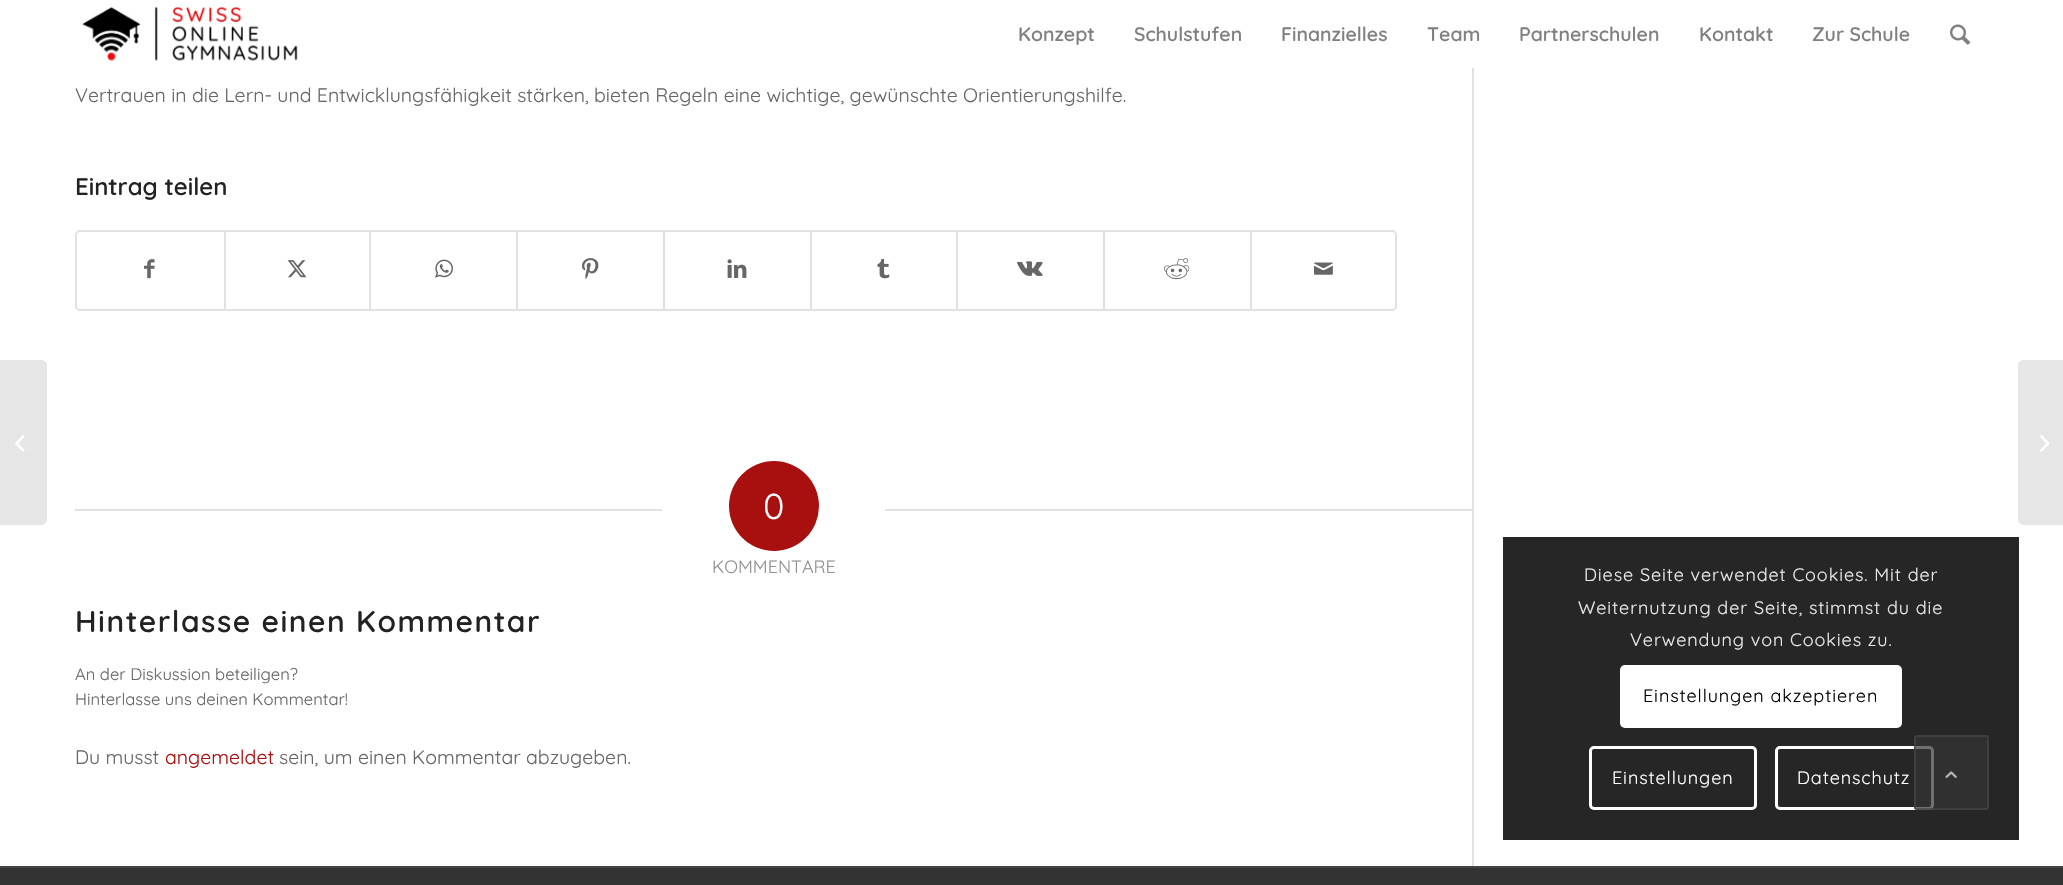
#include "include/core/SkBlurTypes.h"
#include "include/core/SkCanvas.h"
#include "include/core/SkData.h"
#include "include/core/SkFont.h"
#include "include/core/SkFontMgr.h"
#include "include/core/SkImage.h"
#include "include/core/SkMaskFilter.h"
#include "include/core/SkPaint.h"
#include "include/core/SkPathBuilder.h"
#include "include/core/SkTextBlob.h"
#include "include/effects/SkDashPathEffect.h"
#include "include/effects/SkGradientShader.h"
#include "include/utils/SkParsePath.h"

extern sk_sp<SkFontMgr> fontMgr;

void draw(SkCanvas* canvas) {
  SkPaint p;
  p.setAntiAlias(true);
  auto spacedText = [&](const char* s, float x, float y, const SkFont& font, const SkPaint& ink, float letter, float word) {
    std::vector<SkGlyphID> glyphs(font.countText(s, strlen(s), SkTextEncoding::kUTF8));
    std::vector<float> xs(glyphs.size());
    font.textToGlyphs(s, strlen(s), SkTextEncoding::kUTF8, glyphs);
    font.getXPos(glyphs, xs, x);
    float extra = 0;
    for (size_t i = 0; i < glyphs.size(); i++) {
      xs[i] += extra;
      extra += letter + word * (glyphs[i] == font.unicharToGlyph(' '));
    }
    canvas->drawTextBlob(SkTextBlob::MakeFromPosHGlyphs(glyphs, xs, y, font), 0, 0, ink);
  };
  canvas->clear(SK_ColorWHITE);
  canvas->drawImageRect(SkImages::DeferredFromEncodedData(SkData::MakeFromFileName("images/1.png")), SkRect::MakeLTRB(82, 6, 298, 62), SkSamplingOptions());
  canvas->drawImageRect(SkImages::DeferredFromEncodedData(SkData::MakeFromFileName("images/2.png")), SkRect::MakeLTRB(1950, 24, 1971, 45), SkSamplingOptions());
  p.setColor(SkColorSetRGB(230, 230, 230));
  canvas->drawPath(SkPathBuilder().moveTo(0, 360).lineTo(41, 360).cubicTo(44.5f, 360, 47, 362.5f, 47, 366).lineTo(47, 519).cubicTo(47, 522.5f, 44.5f, 525, 41, 525).lineTo(0, 525).close().detach(), p);
  canvas->drawImageRect(SkImages::DeferredFromEncodedData(SkData::MakeFromFileName("images/3.png")), SkRect::MakeLTRB(15, 435, 25, 452), SkSamplingOptions());
  p.setColor(SkColorSetRGB(225, 225, 225));
  canvas->drawRect(SkRect::MakeLTRB(1472, 68, 1474, 866), p);
  p.setStyle(SkPaint::kStroke_Style);
  p.setStrokeWidth(2);
  canvas->drawRoundRect(SkRect::MakeLTRB(76, 231, 1396, 310), 4, 4, p);
  canvas->drawImageRect(SkImages::DeferredFromEncodedData(SkData::MakeFromFileName("images/4.png")), SkRect::MakeLTRB(144, 259, 155, 279), SkSamplingOptions());
  p.setStyle(SkPaint::kFill_Style);
  canvas->drawRect(SkRect::MakeLTRB(224, 231, 226, 309), p);
  canvas->drawImageRect(SkImages::DeferredFromEncodedData(SkData::MakeFromFileName("images/5.png")), SkRect::MakeLTRB(287, 260, 307, 278), SkSamplingOptions());
  canvas->drawRect(SkRect::MakeLTRB(369, 231, 371, 309), p);
  canvas->drawImageRect(SkImages::DeferredFromEncodedData(SkData::MakeFromFileName("images/6.png")), SkRect::MakeLTRB(435, 259, 453, 278), SkSamplingOptions());
  canvas->drawRect(SkRect::MakeLTRB(516, 231, 518, 309), p);
  canvas->drawImageRect(SkImages::DeferredFromEncodedData(SkData::MakeFromFileName("images/7.png")), SkRect::MakeLTRB(582, 258, 599, 279), SkSamplingOptions());
  canvas->drawRect(SkRect::MakeLTRB(663, 231, 665, 309), p);
  canvas->drawImageRect(SkImages::DeferredFromEncodedData(SkData::MakeFromFileName("images/8.png")), SkRect::MakeLTRB(727, 259, 747, 278), SkSamplingOptions());
  canvas->drawRect(SkRect::MakeLTRB(810, 231, 812, 309), p);
  canvas->drawImageRect(SkImages::DeferredFromEncodedData(SkData::MakeFromFileName("images/9.png")), SkRect::MakeLTRB(877, 259, 890, 279), SkSamplingOptions());
  canvas->drawRect(SkRect::MakeLTRB(956, 231, 958, 309), p);
  canvas->drawImageRect(SkImages::DeferredFromEncodedData(SkData::MakeFromFileName("images/10.png")), SkRect::MakeLTRB(1017, 261, 1043, 276), SkSamplingOptions());
  canvas->drawRect(SkRect::MakeLTRB(1103, 231, 1105, 309), p);
  canvas->drawImageRect(SkImages::DeferredFromEncodedData(SkData::MakeFromFileName("images/11.png")), SkRect::MakeLTRB(1164, 258, 1190, 280), SkSamplingOptions());
  canvas->drawRect(SkRect::MakeLTRB(1250, 231, 1252, 309), p);
  canvas->drawImageRect(SkImages::DeferredFromEncodedData(SkData::MakeFromFileName("images/12.png")), SkRect::MakeLTRB(1314, 262, 1333, 275), SkSamplingOptions());
  canvas->drawRect(SkRect::MakeLTRB(75, 509, 662, 511), p);
  p.setColor(SkColorSetRGB(168, 16, 16));
  canvas->drawCircle(774, 506, 45, p);
  p.setColor(SkColorSetRGB(225, 225, 225));
  canvas->drawRect(SkRect::MakeLTRB(885, 509, 1472, 511), p);
  p.setColor(SkColorSetRGB(51, 51, 51));
  canvas->drawRect(SkRect::MakeLTRB(0, 868, 2063, 885), p);
  p.setColor(SkColorSetRGB(68, 68, 68));
  canvas->drawRect(SkRect::MakeLTRB(0, 866, 2063, 868), p);
  p.setColor(SkColorSetRGB(230, 230, 230));
  canvas->drawPath(SkPathBuilder().moveTo(2024, 360).lineTo(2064, 360).lineTo(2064, 525).lineTo(2024, 525).cubicTo(2020.5f, 525, 2018, 522.5f, 2018, 519).lineTo(2018, 366).cubicTo(2018, 362.5f, 2020.5f, 360, 2024, 360).close().detach(), p);
  canvas->drawImageRect(SkImages::DeferredFromEncodedData(SkData::MakeFromFileName("images/13.png")), SkRect::MakeLTRB(2040, 435, 2050, 452), SkSamplingOptions());
  p.setColor(SkColorSetRGB(38, 38, 38));
  canvas->drawRect(SkRect::MakeLTRB(1503, 537, 2019, 840), p);
  p.setColor(SK_ColorWHITE);
  canvas->drawRoundRect(SkRect::MakeLTRB(1620, 665, 1902, 728), 5, 5, p);
  p.setStyle(SkPaint::kStroke_Style);
  p.setStrokeWidth(3);
  canvas->drawRoundRect(SkRect::MakeLTRB(1590.5f, 747.5f, 1755.5f, 808.5f), 3.5f, 3.5f, p);
  canvas->drawRoundRect(SkRect::MakeLTRB(1776.5f, 747.5f, 1932.5f, 808.5f), 3.5f, 3.5f, p);
  p.setStyle(SkPaint::kFill_Style);
  p.setColor(SkColorSetARGB(179, 51, 51, 51));
  canvas->drawRoundRect(SkRect::MakeLTRB(1914, 735, 1989, 810), 3, 3, p);
  p.setStyle(SkPaint::kStroke_Style);
  p.setStrokeWidth(2);
  p.setColor(SkColorSetARGB(179, 68, 68, 68));
  canvas->drawRoundRect(SkRect::MakeLTRB(1915, 736, 1988, 809), 2, 2, p);
  canvas->drawImageRect(SkImages::DeferredFromEncodedData(SkData::MakeFromFileName("images/14.png")), SkRect::MakeLTRB(1945, 771, 1957, 778), SkSamplingOptions());
  SkFont font1(fontMgr->matchFamilyStyle("Quicksand", SkFontStyle(600, SkFontStyle::kNormal_Width, SkFontStyle::kUpright_Slant)), 19.5f);
  font1.setSubpixel(true);
  p.setStyle(SkPaint::kFill_Style);
  p.setColor(SkColorSetRGB(128, 128, 128));
  canvas->drawString("Konzept", 1018, 41, font1, p);
  canvas->drawString("Schulstufen", 1134, 41, font1, p);
  canvas->drawString("Finanzielles", 1281, 41, font1, p);
  canvas->drawString("Team", 1427, 41, font1, p);
  canvas->drawString("Partnerschulen", 1519, 41, font1, p);
  canvas->drawString("Kontakt", 1699, 41, font1, p);
  canvas->drawString("Zur Schule", 1812, 41, font1, p);
  SkFont font2(fontMgr->matchFamilyStyle("Quicksand", SkFontStyle::Normal()), 19.5f);
  font2.setSubpixel(true);
  p.setColor(SkColorSetRGB(102, 102, 102));
  canvas->drawString("Vertrauen in die Lern- und Entwicklungsfähigkeit stärken, bieten Regeln eine wichtige, gewünschte Orientierungshilfe.", 75, 102, font2, p);
  SkFont font3(fontMgr->matchFamilyStyle("Quicksand", SkFontStyle(600, SkFontStyle::kNormal_Width, SkFontStyle::kUpright_Slant)), 24);
  font3.setSubpixel(true);
  p.setColor(SkColorSetRGB(34, 34, 34));
  canvas->drawString("Eintrag teilen", 75, 195, font3, p);
  SkFont font4(fontMgr->matchFamilyStyle("Quicksand", SkFontStyle::Normal()), 36);
  font4.setSubpixel(true);
  p.setColor(SK_ColorWHITE);
  canvas->drawString("0", 763, 519, font4, p);
  SkFont font5(fontMgr->matchFamilyStyle("Quicksand", SkFontStyle::Normal()), 18);
  font5.setSubpixel(true);
  p.setColor(SkColorSetRGB(145, 145, 145));
  canvas->drawString("KOMMENTARE", 712, 573, font5, p);
  SkFont font6(fontMgr->matchFamilyStyle("Quicksand", SkFontStyle(600, SkFontStyle::kNormal_Width, SkFontStyle::kUpright_Slant)), 30);
  font6.setSubpixel(true);
  p.setColor(SkColorSetRGB(34, 34, 34));
  spacedText("Hinterlasse einen Kommentar", 75, 632, font6, p, 1.5f, 0);
  SkFont font7(fontMgr->matchFamilyStyle("Quicksand", SkFontStyle::Normal()), 16.6f);
  font7.setSubpixel(true);
  p.setColor(SkColorSetRGB(102, 102, 102));
  canvas->drawString("An der Diskussion beteiligen?", 75, 680, font7, p);
  canvas->drawString("Hinterlasse uns deinen Kommentar!", 75, 705, font7, p);
  canvas->drawString("Du musst", 75, 764, font2, p);
  p.setColor(SkColorSetRGB(168, 16, 16));
  canvas->drawString("angemeldet", 165, 764, font2, p);
  p.setColor(SkColorSetRGB(102, 102, 102));
  canvas->drawString("sein, um einen Kommentar abzugeben.", 279, 764, font2, p);
  p.setColor(SkColorSetRGB(233, 233, 233));
  spacedText("Diese Seite verwendet Cookies. Mit der", 1584, 581, font5, p, 0.9f, 0);
  spacedText("Weiternutzung der Seite, stimmst du die", 1578, 614, font5, p, 0.9f, 0);
  spacedText("Verwendung von Cookies zu.", 1630, 646, font5, p, 0.9f, 0);
  p.setColor(SK_ColorBLACK);
  spacedText("Einstellungen akzeptieren", 1643, 702, font5, p, 0.9f, 0);
  p.setColor(SK_ColorWHITE);
  spacedText("Einstellungen", 1612, 784, font5, p, 0.9f, 0);
  spacedText("Datenschutz", 1797, 784, font5, p, 0.9f, 0);
}
